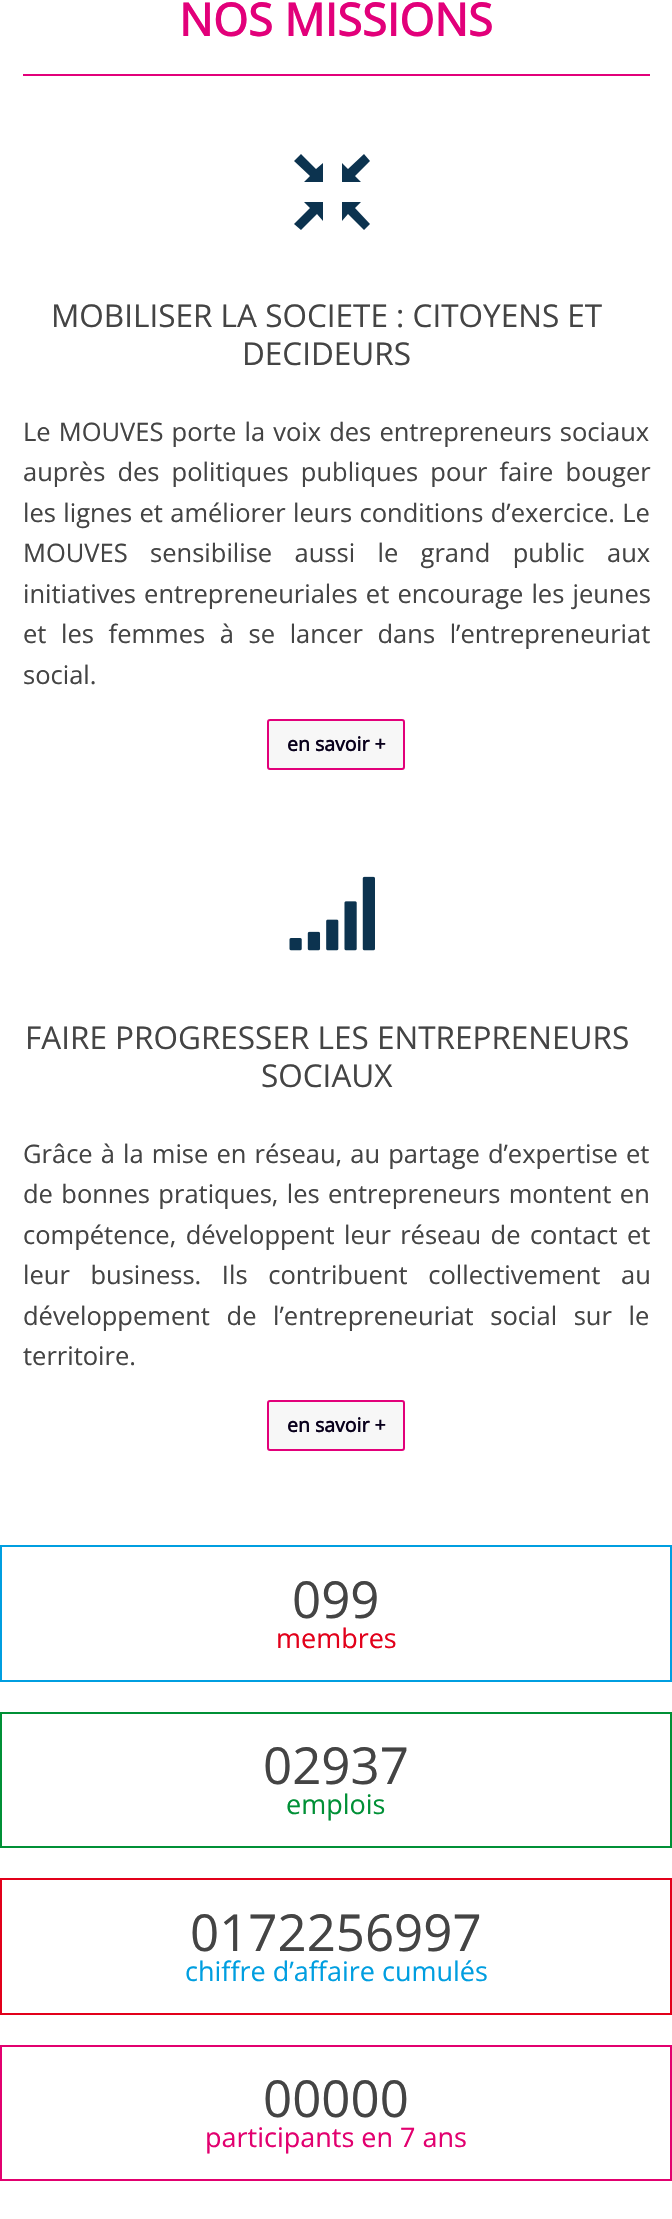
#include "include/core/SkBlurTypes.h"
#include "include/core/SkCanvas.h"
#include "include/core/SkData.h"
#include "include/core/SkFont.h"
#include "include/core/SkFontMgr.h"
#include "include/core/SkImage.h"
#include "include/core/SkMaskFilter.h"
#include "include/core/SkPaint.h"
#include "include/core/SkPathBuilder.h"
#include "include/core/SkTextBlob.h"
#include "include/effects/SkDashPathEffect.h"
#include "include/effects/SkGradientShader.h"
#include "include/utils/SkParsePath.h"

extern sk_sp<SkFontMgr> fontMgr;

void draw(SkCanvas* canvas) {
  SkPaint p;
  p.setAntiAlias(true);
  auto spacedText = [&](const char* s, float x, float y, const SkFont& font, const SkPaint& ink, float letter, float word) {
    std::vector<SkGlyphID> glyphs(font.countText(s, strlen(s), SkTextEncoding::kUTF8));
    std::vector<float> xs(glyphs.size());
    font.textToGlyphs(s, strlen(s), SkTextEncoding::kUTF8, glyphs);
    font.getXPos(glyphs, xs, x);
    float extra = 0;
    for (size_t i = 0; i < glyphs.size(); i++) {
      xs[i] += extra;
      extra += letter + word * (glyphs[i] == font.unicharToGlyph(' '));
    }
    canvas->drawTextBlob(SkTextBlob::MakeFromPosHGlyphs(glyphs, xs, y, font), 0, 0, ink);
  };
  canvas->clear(SK_ColorWHITE);
  p.setColor(SkColorSetRGB(226, 0, 122));
  canvas->drawRect(SkRect::MakeLTRB(23, 74, 650, 76), p);
  p.setColor(SkColorSetRGB(12, 51, 79));
  canvas->drawPath(SkPathBuilder().moveTo(348, 214).lineTo(342, 221).lineTo(342, 202).lineTo(361, 202).lineTo(355, 208).lineTo(370, 224).lineTo(364, 230).close().moveTo(310, 176).lineTo(294, 161).lineTo(301, 154).lineTo(316, 169).lineTo(323, 163).lineTo(323, 182).lineTo(304, 182).close().moveTo(294, 224).lineTo(310, 208).lineTo(304, 202).lineTo(323, 202).lineTo(323, 221).lineTo(317, 214).lineTo(301, 230).close().moveTo(361, 182).lineTo(342, 182).lineTo(342, 163).lineTo(348, 169).lineTo(364, 154).lineTo(370, 161).lineTo(355, 176).close().detach(), p);
  p.setColor(SkColorSetRGB(247, 247, 247));
  canvas->drawRoundRect(SkRect::MakeLTRB(268, 720, 404, 769), 2, 2, p);
  p.setStyle(SkPaint::kStroke_Style);
  p.setStrokeWidth(2);
  p.setColor(SkColorSetRGB(226, 0, 122));
  canvas->drawRoundRect(SkRect::MakeLTRB(268, 720, 404, 769), 2, 2, p);
  canvas->drawImageRect(SkImages::DeferredFromEncodedData(SkData::MakeFromFileName("images/1.png")), SkRect::MakeLTRB(289, 876, 375, 951), SkSamplingOptions());
  p.setStyle(SkPaint::kFill_Style);
  p.setColor(SkColorSetRGB(247, 247, 247));
  canvas->drawRoundRect(SkRect::MakeLTRB(268, 1401, 404, 1450), 2, 2, p);
  p.setStyle(SkPaint::kStroke_Style);
  p.setColor(SkColorSetRGB(226, 0, 122));
  canvas->drawRoundRect(SkRect::MakeLTRB(268, 1401, 404, 1450), 2, 2, p);
  p.setColor(SkColorSetRGB(0, 158, 224));
  canvas->drawRect(SkRect::MakeLTRB(1, 1546, 671, 1681), p);
  p.setColor(SkColorSetRGB(0, 144, 54));
  canvas->drawRect(SkRect::MakeLTRB(1, 1713, 671, 1847), p);
  p.setColor(SkColorSetRGB(226, 0, 26));
  canvas->drawRect(SkRect::MakeLTRB(1, 1879, 671, 2014), p);
  p.setColor(SkColorSetRGB(226, 0, 111));
  canvas->drawRect(SkRect::MakeLTRB(1, 2046, 671, 2180), p);
  SkFont font1(fontMgr->matchFamilyStyle("Open Sans", SkFontStyle::Bold()), 45);
  font1.setSubpixel(true);
  p.setStyle(SkPaint::kFill_Style);
  p.setColor(SkColorSetRGB(226, 0, 122));
  canvas->drawString("NOS MISSIONS", 179, 36, font1, p);
  SkFont font2(fontMgr->matchFamilyStyle("Open Sans", SkFontStyle::Normal()), 31.5f);
  font2.setSubpixel(true);
  p.setColor(SkColorSetRGB(68, 68, 68));
  canvas->drawString("MOBILISER LA SOCIETE : CITOYENS ET", 51, 327, font2, p);
  canvas->drawString("DECIDEURS", 242, 365, font2, p);
  SkFont font3(fontMgr->matchFamilyStyle("Open Sans", SkFontStyle::Normal()), 25.5f);
  font3.setSubpixel(true);
  spacedText("Le MOUVES porte la voix des entrepreneurs sociaux", 23, 441, font3, p, 0, 1.5f);
  spacedText("auprès des politiques publiques pour faire bouger", 23, 481, font3, p, 0, 5.5f);
  spacedText("les lignes et améliorer leurs conditions d’exercice. Le", 23, 522, font3, p, 0, 0.75f);
  spacedText("MOUVES sensibilise aussi le grand public aux", 23, 562, font3, p, 0, 15.75f);
  spacedText("initiatives entrepreneuriales et encourage les jeunes", 23, 603, font3, p, 0, 1.5f);
  spacedText("et les femmes à se lancer dans l’entrepreneuriat", 23, 643, font3, p, 0, 8);
  canvas->drawString("social.", 23, 684, font3, p);
  SkFont font4(fontMgr->matchFamilyStyle("Open Sans", SkFontStyle::Bold()), 19.5f);
  font4.setSubpixel(true);
  p.setColor(SkColorSetRGB(9, 0, 28));
  canvas->drawString("en savoir +", 287, 751, font4, p);
  p.setColor(SkColorSetRGB(68, 68, 68));
  canvas->drawString("FAIRE PROGRESSER LES ENTREPRENEURS", 25, 1049, font2, p);
  canvas->drawString("SOCIAUX", 261, 1087, font2, p);
  spacedText("Grâce à la mise en réseau, au partage d’expertise et", 23, 1163, font3, p, 0, 1.5f);
  spacedText("de bonnes pratiques, les entrepreneurs montent en", 23, 1203, font3, p, 0, 1.75f);
  spacedText("compétence, développent leur réseau de contact et", 23, 1244, font3, p, 0, 2.75f);
  spacedText("leur business. Ils contribuent collectivement au", 23, 1284, font3, p, 0, 14);
  spacedText("développement de l’entrepreneuriat social sur le", 23, 1325, font3, p, 0, 10);
  canvas->drawString("territoire.", 23, 1365, font3, p);
  p.setColor(SkColorSetRGB(9, 0, 28));
  canvas->drawString("en savoir +", 287, 1432, font4, p);
  SkFont font5(fontMgr->matchFamilyStyle("Open Sans", SkFontStyle::Normal()), 51);
  font5.setSubpixel(true);
  p.setColor(SkColorSetRGB(68, 68, 68));
  canvas->drawString("099", 292, 1618, font5, p);
  SkFont font6(fontMgr->matchFamilyStyle("Open Sans", SkFontStyle::Normal()), 27);
  font6.setSubpixel(true);
  p.setColor(SkColorSetRGB(226, 0, 26));
  canvas->drawString("membres", 276, 1648, font6, p);
  p.setColor(SkColorSetRGB(68, 68, 68));
  canvas->drawString("02937", 263, 1784, font5, p);
  p.setColor(SkColorSetRGB(0, 144, 54));
  canvas->drawString("emplois", 286, 1814, font6, p);
  p.setColor(SkColorSetRGB(68, 68, 68));
  canvas->drawString("0172256997", 190, 1951, font5, p);
  p.setColor(SkColorSetRGB(0, 158, 224));
  canvas->drawString("chiffre d’affaire cumulés", 185, 1981, font6, p);
  p.setColor(SkColorSetRGB(68, 68, 68));
  canvas->drawString("00000", 263, 2117, font5, p);
  p.setColor(SkColorSetRGB(226, 0, 111));
  canvas->drawString("participants en 7 ans", 205, 2147, font6, p);
}
